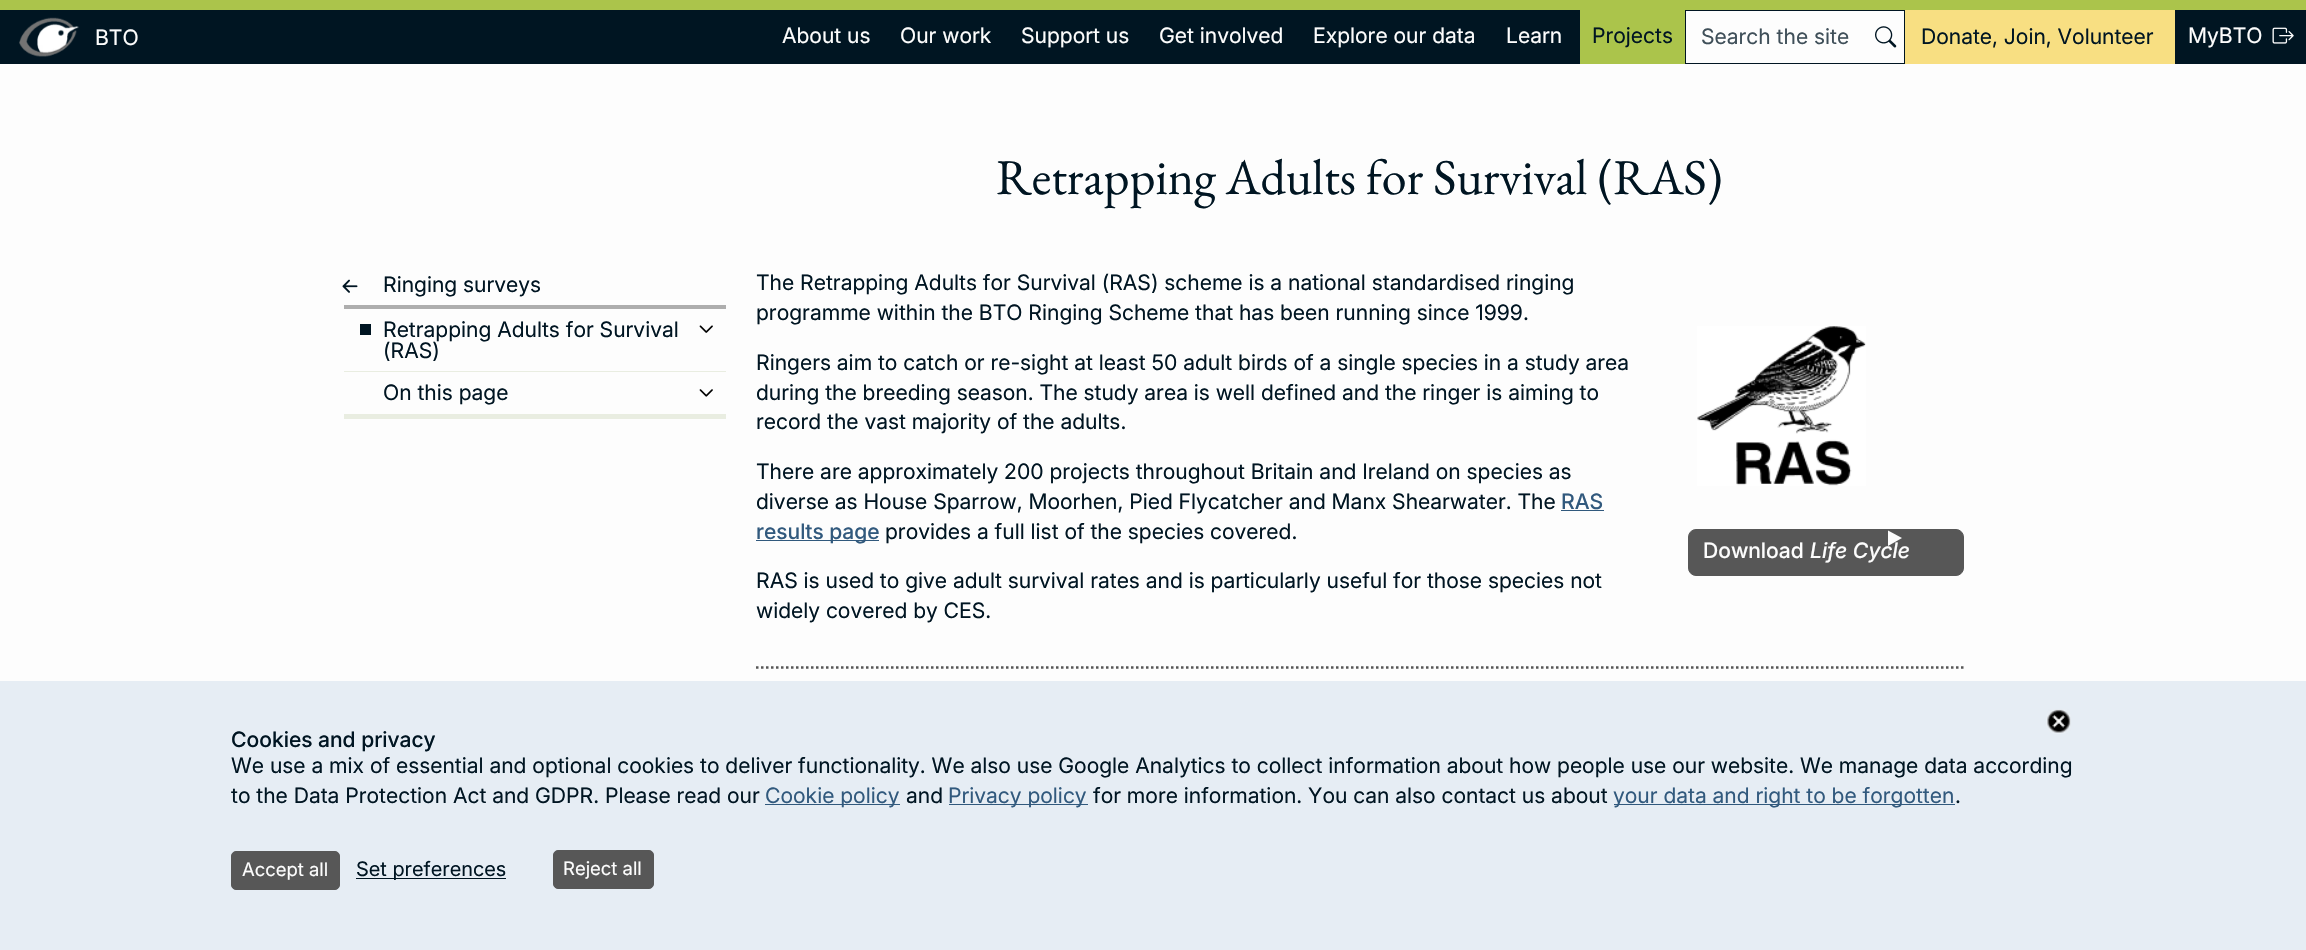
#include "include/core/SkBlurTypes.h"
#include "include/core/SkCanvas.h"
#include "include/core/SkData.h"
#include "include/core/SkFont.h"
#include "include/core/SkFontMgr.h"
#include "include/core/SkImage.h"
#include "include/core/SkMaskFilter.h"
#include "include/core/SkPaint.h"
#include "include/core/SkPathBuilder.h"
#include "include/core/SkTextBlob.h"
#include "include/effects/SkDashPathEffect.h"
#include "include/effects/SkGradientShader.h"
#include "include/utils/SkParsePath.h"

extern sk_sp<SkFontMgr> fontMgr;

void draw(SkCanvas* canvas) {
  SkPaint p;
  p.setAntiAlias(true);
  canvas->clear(SkColorSetRGB(253, 253, 253));
  p.setColor(SkColorSetRGB(0, 21, 34));
  canvas->drawRect(SkRect::MakeLTRB(0, 10, 2306, 64), p);
  p.setColor(SkColorSetRGB(171, 196, 75));
  canvas->drawRect(SkRect::MakeLTRB(0, 0, 2306, 10), p);
  canvas->drawImageRect(SkImages::DeferredFromEncodedData(SkData::MakeFromFileName("images/1.png")), SkRect::MakeLTRB(19, 17, 79, 57), SkSamplingOptions());
  canvas->drawRect(SkRect::MakeLTRB(1580, 10, 1685, 64), p);
  p.setColor(SkColorSetRGB(253, 253, 253));
  canvas->drawRect(SkRect::MakeLTRB(1686, 11, 1904, 63), p);
  canvas->drawImageRect(SkImages::DeferredFromEncodedData(SkData::MakeFromFileName("images/2.png")), SkRect::MakeLTRB(1875, 26, 1897, 48), SkSamplingOptions());
  p.setColor(SkColorSetRGB(248, 223, 130));
  canvas->drawRect(SkRect::MakeLTRB(1905, 10, 2175, 64), p);
  canvas->drawImageRect(SkImages::DeferredFromEncodedData(SkData::MakeFromFileName("images/3.png")), SkRect::MakeLTRB(2272, 27, 2294, 44), SkSamplingOptions());
  p.setColor(SkColorSetRGB(233, 237, 225));
  canvas->drawRect(SkRect::MakeLTRB(344, 414, 726, 419), p);
  canvas->drawImageRect(SkImages::DeferredFromEncodedData(SkData::MakeFromFileName("images/4.png")), SkRect::MakeLTRB(342, 279, 358, 293), SkSamplingOptions());
  p.setColor(SkColorSetRGB(174, 174, 174));
  canvas->drawRect(SkRect::MakeLTRB(344, 305, 726, 309), p);
  p.setColor(SkColorSetRGB(0, 21, 34));
  canvas->drawRect(SkRect::MakeLTRB(360, 324, 371, 335), p);
  canvas->drawImageRect(SkImages::DeferredFromEncodedData(SkData::MakeFromFileName("images/5.png")), SkRect::MakeLTRB(699, 325, 713, 333), SkSamplingOptions());
  p.setColor(SkColorSetRGB(233, 237, 225));
  canvas->drawRect(SkRect::MakeLTRB(344, 371, 726, 372), p);
  canvas->drawImageRect(SkImages::DeferredFromEncodedData(SkData::MakeFromFileName("images/6.png")), SkRect::MakeLTRB(699, 389, 713, 397), SkSamplingOptions());
  p.setColor(SkColorSetRGB(49, 89, 125));
  canvas->drawRect(SkRect::MakeLTRB(1561, 510, 1604, 511), p);
  canvas->drawRect(SkRect::MakeLTRB(756, 540, 879, 541), p);
  p.setStyle(SkPaint::kStroke_Style);
  p.setStrokeWidth(2.5f);
  p.setColor(SkColorSetRGB(87, 87, 87));
  p.setPathEffect(SkDashPathEffect::Make({{2.5f, 2.5f}}, 0));
  canvas->drawPath(SkPathBuilder().moveTo(756, 667.5f).lineTo(1964, 667.5f).detach(), p);
  p.setPathEffect(nullptr);
  canvas->drawImageRect(SkImages::DeferredFromEncodedData(SkData::MakeFromFileName("images/7.png")), SkRect::MakeLTRB(1697, 326, 1866, 486), SkSamplingOptions());
  p.setStyle(SkPaint::kFill_Style);
  canvas->drawRoundRect(SkRect::MakeLTRB(1688.5f, 529.5f, 1963.5f, 575.5f), 7.5f, 7.5f, p);
  p.setStyle(SkPaint::kStroke_Style);
  p.setStrokeWidth(1);
  canvas->drawRoundRect(SkRect::MakeLTRB(1688.5f, 529.5f, 1963.5f, 575.5f), 7.5f, 7.5f, p);
  p.setStyle(SkPaint::kFill_Style);
  p.setColor(SkColorSetRGB(253, 253, 253));
  canvas->drawPath(SkPathBuilder().moveTo(1902, 538).lineTo(1888, 546).lineTo(1888, 530.5f).close().detach(), p);
  p.setColor(SkColorSetRGB(230, 237, 244));
  canvas->drawRect(SkRect::MakeLTRB(0, 681, 2306, 950), p);
  canvas->drawImageRect(SkImages::DeferredFromEncodedData(SkData::MakeFromFileName("images/8.png")), SkRect::MakeLTRB(2046, 709, 2071, 734), SkSamplingOptions());
  p.setColor(SkColorSetRGB(49, 89, 125));
  canvas->drawRect(SkRect::MakeLTRB(765, 804, 900, 805), p);
  canvas->drawRect(SkRect::MakeLTRB(949, 804, 1088, 805), p);
  canvas->drawRect(SkRect::MakeLTRB(1614, 804, 1955, 805), p);
  p.setColor(SkColorSetRGB(87, 87, 87));
  canvas->drawRoundRect(SkRect::MakeLTRB(231.5f, 851.5f, 339.5f, 889.5f), 4.5f, 4.5f, p);
  p.setStyle(SkPaint::kStroke_Style);
  canvas->drawRoundRect(SkRect::MakeLTRB(231.5f, 851.5f, 339.5f, 889.5f), 4.5f, 4.5f, p);
  p.setStyle(SkPaint::kFill_Style);
  p.setColor(SkColorSetRGB(0, 21, 34));
  canvas->drawRect(SkRect::MakeLTRB(356, 878, 506, 879), p);
  p.setColor(SkColorSetRGB(87, 87, 87));
  canvas->drawRoundRect(SkRect::MakeLTRB(553.5f, 850.5f, 653.5f, 888.5f), 4.5f, 4.5f, p);
  p.setStyle(SkPaint::kStroke_Style);
  canvas->drawRoundRect(SkRect::MakeLTRB(553.5f, 850.5f, 653.5f, 888.5f), 4.5f, 4.5f, p);
  SkFont font1(fontMgr->matchFamilyStyle("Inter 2", SkFontStyle::Normal()), 21.25f);
  font1.setSubpixel(true);
  p.setStyle(SkPaint::kFill_Style);
  p.setColor(SkColorSetRGB(253, 253, 253));
  canvas->drawString("BTO", 95, 45, font1, p);
  canvas->drawString("About us", 782, 43, font1, p);
  canvas->drawString("Our work", 900, 43, font1, p);
  canvas->drawString("Support us", 1021, 43, font1, p);
  canvas->drawString("Get involved", 1159, 43, font1, p);
  canvas->drawString("Explore our data", 1313, 43, font1, p);
  canvas->drawString("Learn", 1506, 43, font1, p);
  p.setColor(SkColorSetRGB(0, 21, 34));
  canvas->drawString("Projects", 1592, 43, font1, p);
  p.setColor(SkColorSetRGB(63, 79, 89));
  canvas->drawString("Search the site", 1701, 44, font1, p);
  p.setColor(SkColorSetRGB(0, 21, 34));
  canvas->drawString("Donate, Join, Volunteer", 1921, 44, font1, p);
  p.setColor(SkColorSetRGB(253, 253, 253));
  canvas->drawString("MyBTO", 2188, 43, font1, p);
  SkFont font2(fontMgr->matchFamilyStyle("EB Garamond", SkFontStyle::Normal()), 50);
  font2.setSubpixel(true);
  p.setColor(SkColorSetRGB(0, 21, 34));
  canvas->drawString("Retrapping Adults for Survival (RAS)", 996, 194, font2, p);
  SkFont font3(fontMgr->matchFamilyStyle("Inter", SkFontStyle::Normal()), 21.25f);
  font3.setSubpixel(true);
  canvas->drawString("Ringing surveys", 383, 292, font3, p);
  canvas->drawString("Retrapping Adults for Survival", 383, 337, font3, p);
  canvas->drawString("(RAS)", 383, 358, font3, p);
  canvas->drawString("On this page", 383, 400, font3, p);
  canvas->drawString("The Retrapping Adults for Survival (RAS) scheme is a national standardised ringing", 756, 290, font3, p);
  canvas->drawString("programme within the BTO Ringing Scheme that has been running since 1999.", 756, 320, font3, p);
  canvas->drawString("Ringers aim to catch or re-sight at least 50 adult birds of a single species in a study area", 756, 370, font3, p);
  canvas->drawString("during the breeding season. The study area is well defined and the ringer is aiming to", 756, 400, font3, p);
  canvas->drawString("record the vast majority of the adults.", 756, 429, font3, p);
  canvas->drawString("There are approximately 200 projects throughout Britain and Ireland on species as", 756, 479, font3, p);
  canvas->drawString("diverse as House Sparrow, Moorhen, Pied Flycatcher and Manx Shearwater. The", 756, 509, font3, p);
  SkFont font4(fontMgr->matchFamilyStyle("Inter", SkFontStyle(500, SkFontStyle::kNormal_Width, SkFontStyle::kUpright_Slant)), 21.25f);
  font4.setSubpixel(true);
  p.setColor(SkColorSetRGB(49, 89, 125));
  canvas->drawString("RAS", 1561, 509, font4, p);
  canvas->drawString("results page", 756, 539, font4, p);
  p.setColor(SkColorSetRGB(0, 21, 34));
  canvas->drawString("provides a full list of the species covered.", 885, 539, font3, p);
  canvas->drawString("RAS is used to give adult survival rates and is particularly useful for those species not", 756, 588, font3, p);
  canvas->drawString("widely covered by CES.", 756, 618, font3, p);
  p.setColor(SkColorSetRGB(253, 253, 253));
  canvas->drawString("Download", 1703, 558, font4, p);
  SkFont font5(fontMgr->matchFamilyStyle("Inter", SkFontStyle(500, SkFontStyle::kNormal_Width, SkFontStyle::kItalic_Slant)), 21.25f);
  font5.setSubpixel(true);
  canvas->drawString("Life Cycle", 1810, 558, font5, p);
  SkFont font6(fontMgr->matchFamilyStyle("Inter 2", SkFontStyle(500, SkFontStyle::kNormal_Width, SkFontStyle::kUpright_Slant)), 21.25f);
  font6.setSubpixel(true);
  p.setColor(SkColorSetRGB(0, 21, 34));
  canvas->drawString("Cookies and privacy", 231, 747, font6, p);
  canvas->drawString("We use a mix of essential and optional cookies to deliver functionality. We also use Google Analytics to collect information about how people use our website. We manage data according", 231, 773, font3, p);
  canvas->drawString("to the Data Protection Act and GDPR. Please read our", 231, 803, font3, p);
  p.setColor(SkColorSetRGB(49, 89, 125));
  canvas->drawString("Cookie policy", 765, 803, font3, p);
  p.setColor(SkColorSetRGB(0, 21, 34));
  canvas->drawString("and", 906, 803, font3, p);
  p.setColor(SkColorSetRGB(49, 89, 125));
  canvas->drawString("Privacy policy", 948, 803, font3, p);
  p.setColor(SkColorSetRGB(0, 21, 34));
  canvas->drawString("for more information. You can also contact us about", 1093, 803, font3, p);
  p.setColor(SkColorSetRGB(49, 89, 125));
  canvas->drawString("your data and right to be forgotten", 1613, 803, font3, p);
  p.setColor(SkColorSetRGB(0, 21, 34));
  canvas->drawString(".", 1955, 803, font3, p);
  SkFont font7(fontMgr->matchFamilyStyle("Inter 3", SkFontStyle::Normal()), 18.5f);
  font7.setSubpixel(true);
  p.setColor(SkColorSetRGB(253, 253, 253));
  canvas->drawString("Accept all", 242, 876, font7, p);
  SkFont font8(fontMgr->matchFamilyStyle("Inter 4", SkFontStyle::Normal()), 20);
  font8.setSubpixel(true);
  p.setColor(SkColorSetRGB(0, 21, 34));
  canvas->drawString("Set preferences", 356, 876, font8, p);
  p.setColor(SkColorSetRGB(253, 253, 253));
  canvas->drawString("Reject all", 563, 875, font7, p);
}
